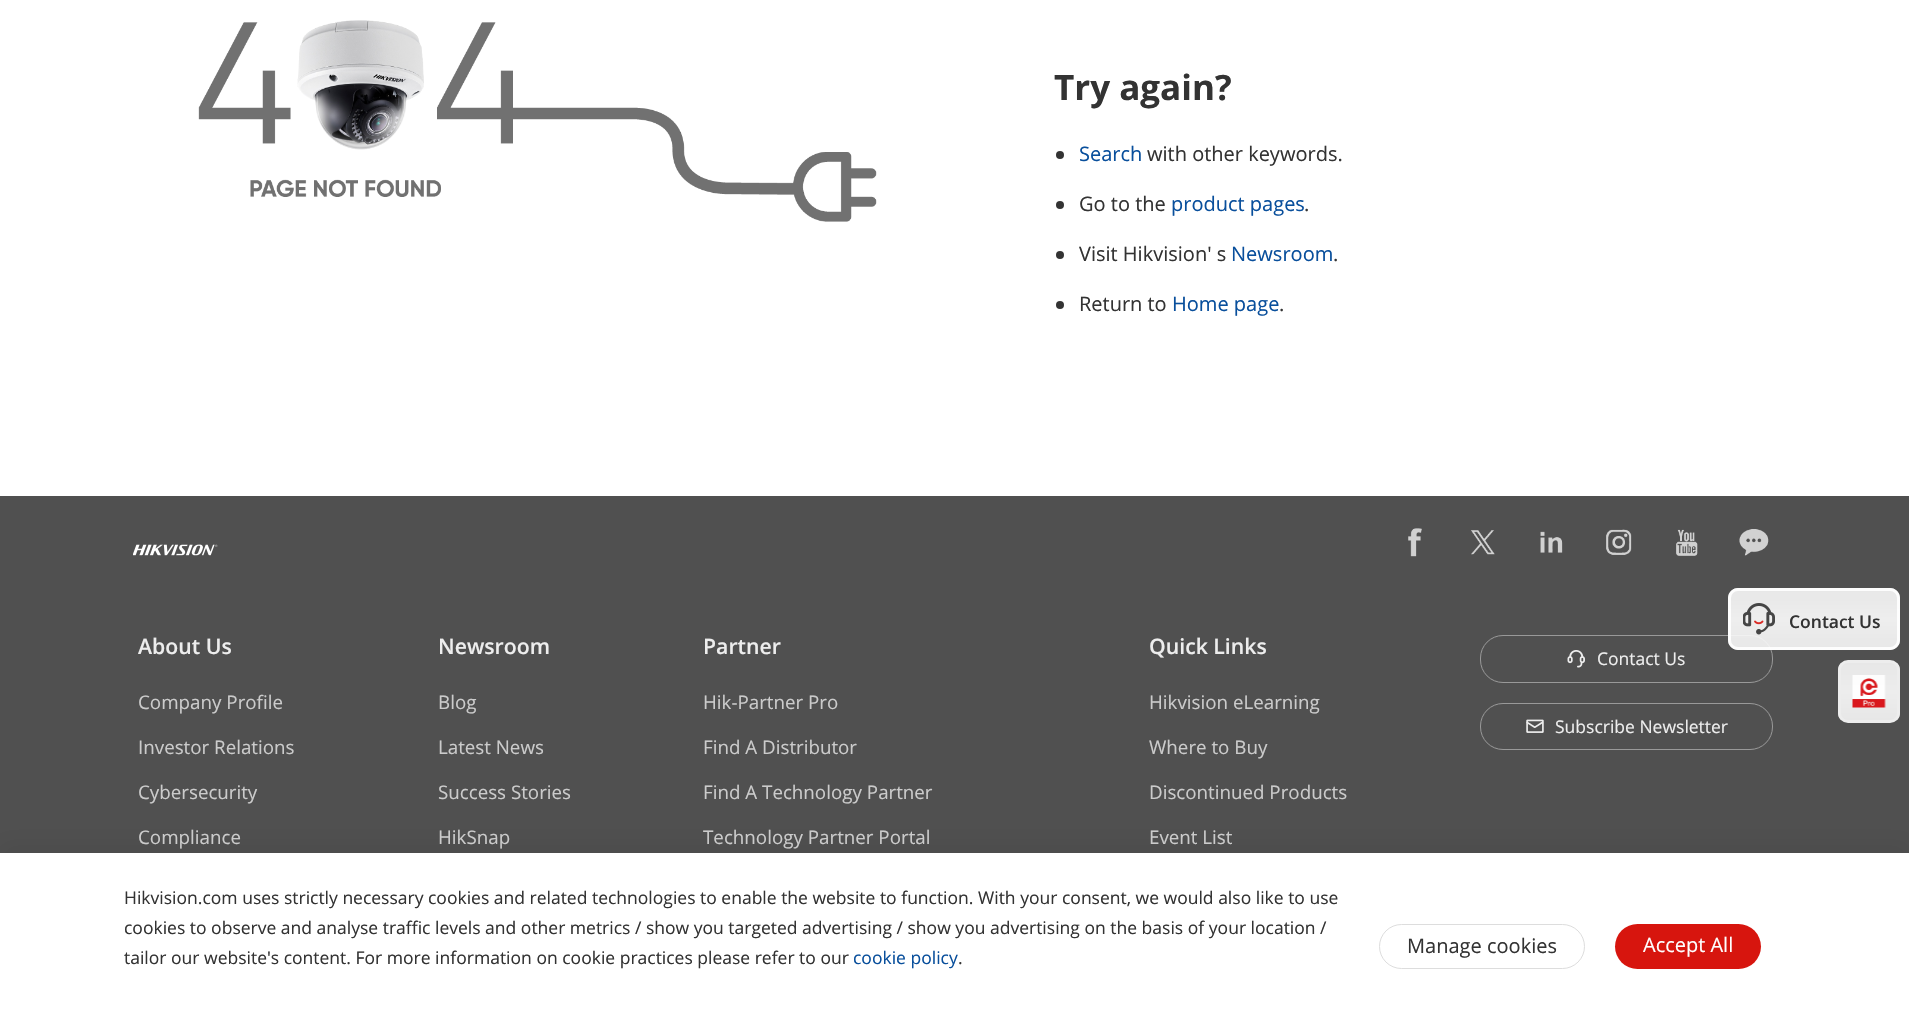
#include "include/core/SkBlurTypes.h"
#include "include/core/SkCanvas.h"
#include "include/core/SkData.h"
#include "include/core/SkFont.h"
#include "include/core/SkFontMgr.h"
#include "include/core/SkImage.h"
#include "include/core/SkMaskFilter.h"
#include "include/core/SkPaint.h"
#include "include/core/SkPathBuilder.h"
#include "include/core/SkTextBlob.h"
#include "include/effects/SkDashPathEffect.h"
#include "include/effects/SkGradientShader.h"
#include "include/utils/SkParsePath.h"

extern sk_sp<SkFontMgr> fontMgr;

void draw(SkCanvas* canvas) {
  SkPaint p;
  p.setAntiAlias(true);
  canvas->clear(SK_ColorWHITE);
  canvas->drawImageRect(SkImages::DeferredFromEncodedData(SkData::MakeFromFileName("images/1.png")), SkRect::MakeLTRB(198, 20, 877, 222), SkSamplingOptions());
  p.setColor(SkColorSetRGB(51, 51, 51));
  canvas->drawCircle(1060, 155, 4, p);
  canvas->drawCircle(1060, 205, 4, p);
  canvas->drawCircle(1060, 255, 4, p);
  canvas->drawCircle(1060, 305, 4, p);
  p.setColor(SkColorSetRGB(80, 80, 80));
  canvas->drawRect(SkRect::MakeLTRB(0, 496, 1909, 853), p);
  canvas->save();
  canvas->clipPath(SkPathBuilder().moveTo(1738, 588).lineTo(1890, 588).cubicTo(1895.5f, 588, 1900, 592.5f, 1900, 598).lineTo(1900, 640).cubicTo(1900, 645.5f, 1895.5f, 650, 1890, 650).lineTo(1738, 650).cubicTo(1732.5f, 650, 1728, 645.5f, 1728, 640).lineTo(1728, 598).cubicTo(1728, 592.5f, 1732.5f, 588, 1738, 588).close().detach(), true);
  {
    const SkColor colors[] = {SkColorSetRGB(231, 231, 231), SkColorSetRGB(238, 238, 238), SkColorSetRGB(231, 231, 231)};
    const float stops[] = {0, 0.51f, 1};
    const SkPoint ends[] = {{1814, 533}, {1814, 590}};
    p.setShader(SkGradientShader::MakeLinear(ends, colors, stops, 3, SkTileMode::kClamp));
    p.setAlpha(255);
  }
  canvas->drawRect(SkRect::MakeLTRB(1728, 588, 1900, 590), p);
  canvas->restore();
  p.setStyle(SkPaint::kStroke_Style);
  p.setStrokeWidth(1);
  p.setShader(nullptr);
  p.setColor(SkColorSetRGB(153, 153, 153));
  canvas->drawRoundRect(SkRect::MakeLTRB(1480.5f, 635.5f, 1772.5f, 682.5f), 22.5f, 22.5f, p);
  canvas->save();
  canvas->clipPath(SkPathBuilder().moveTo(1738, 588).lineTo(1890, 588).cubicTo(1895.5f, 588, 1900, 592.5f, 1900, 598).lineTo(1900, 640).cubicTo(1900, 645.5f, 1895.5f, 650, 1890, 650).lineTo(1738, 650).cubicTo(1732.5f, 650, 1728, 645.5f, 1728, 640).lineTo(1728, 598).cubicTo(1728, 592.5f, 1732.5f, 588, 1738, 588).close().detach(), true);
  p.setStyle(SkPaint::kFill_Style);
  {
    const SkColor colors[] = {SkColorSetARGB(230, 248, 248, 248), SkColorSetARGB(230, 255, 255, 255), SkColorSetARGB(230, 248, 248, 248)};
    const float stops[] = {0, 0.51f, 1};
    const SkPoint ends[] = {{1814, 590}, {1814, 648}};
    p.setShader(SkGradientShader::MakeLinear(ends, colors, stops, 3, SkTileMode::kClamp));
    p.setAlpha(255);
  }
  canvas->drawRect(SkRect::MakeLTRB(1728, 590, 1900, 648), p);
  {
    const SkColor colors[] = {SkColorSetARGB(230, 248, 248, 248), SkColorSetARGB(230, 255, 255, 255), SkColorSetARGB(230, 248, 248, 248)};
    const float stops[] = {0, 0.51f, 1};
    const SkPoint ends[] = {{1814, 648}, {1814, 705}};
    p.setShader(SkGradientShader::MakeLinear(ends, colors, stops, 3, SkTileMode::kClamp));
    p.setAlpha(255);
  }
  canvas->drawRect(SkRect::MakeLTRB(1728, 648, 1900, 650), p);
  canvas->restore();
  p.setStyle(SkPaint::kStroke_Style);
  p.setStrokeWidth(3);
  p.setShader(nullptr);
  p.setColor(SkColorSetARGB(230, 255, 255, 255));
  canvas->drawRoundRect(SkRect::MakeLTRB(1729.5f, 589.5f, 1898.5f, 648.5f), 8.5f, 8.5f, p);
  canvas->drawImageRect(SkImages::DeferredFromEncodedData(SkData::MakeFromFileName("images/2.png")), SkRect::MakeLTRB(1743, 603, 1775, 635), SkSamplingOptions());
  canvas->drawImageRect(SkImages::DeferredFromEncodedData(SkData::MakeFromFileName("images/3.png")), SkRect::MakeLTRB(133, 544, 218, 556), SkSamplingOptions());
  canvas->drawImageRect(SkImages::DeferredFromEncodedData(SkData::MakeFromFileName("images/4.png")), SkRect::MakeLTRB(1408, 528, 1422, 557), SkSamplingOptions());
  canvas->drawImageRect(SkImages::DeferredFromEncodedData(SkData::MakeFromFileName("images/5.png")), SkRect::MakeLTRB(1471, 530, 1495, 555), SkSamplingOptions());
  canvas->drawImageRect(SkImages::DeferredFromEncodedData(SkData::MakeFromFileName("images/6.png")), SkRect::MakeLTRB(1540, 531, 1563, 553), SkSamplingOptions());
  canvas->drawImageRect(SkImages::DeferredFromEncodedData(SkData::MakeFromFileName("images/7.png")), SkRect::MakeLTRB(1606, 529, 1632, 555), SkSamplingOptions());
  canvas->drawImageRect(SkImages::DeferredFromEncodedData(SkData::MakeFromFileName("images/8.png")), SkRect::MakeLTRB(1676, 529, 1698, 556), SkSamplingOptions());
  canvas->drawImageRect(SkImages::DeferredFromEncodedData(SkData::MakeFromFileName("images/9.png")), SkRect::MakeLTRB(1739, 529, 1769, 556), SkSamplingOptions());
  canvas->drawImageRect(SkImages::DeferredFromEncodedData(SkData::MakeFromFileName("images/10.png")), SkRect::MakeLTRB(1567, 650, 1585, 668), SkSamplingOptions());
  p.setStrokeWidth(1);
  p.setColor(SkColorSetRGB(153, 153, 153));
  canvas->drawRoundRect(SkRect::MakeLTRB(1480.5f, 703.5f, 1772.5f, 749.5f), 22.5f, 22.5f, p);
  canvas->drawImageRect(SkImages::DeferredFromEncodedData(SkData::MakeFromFileName("images/11.png")), SkRect::MakeLTRB(1526, 719, 1544, 733), SkSamplingOptions());
  canvas->save();
  canvas->clipPath(SkPathBuilder().moveTo(1848, 660).lineTo(1890, 660).cubicTo(1895.5f, 660, 1900, 664.5f, 1900, 670).lineTo(1900, 713).cubicTo(1900, 718.5f, 1895.5f, 723, 1890, 723).lineTo(1848, 723).cubicTo(1842.5f, 723, 1838, 718.5f, 1838, 713).lineTo(1838, 670).cubicTo(1838, 664.5f, 1842.5f, 660, 1848, 660).close().detach(), true);
  p.setStyle(SkPaint::kFill_Style);
  {
    const SkColor colors[] = {SkColorSetRGB(231, 231, 231), SkColorSetRGB(237, 237, 237), SkColorSetRGB(231, 231, 231)};
    const float stops[] = {0, 0.51f, 1};
    const SkPoint ends[] = {{1869, 663}, {1869, 720}};
    p.setShader(SkGradientShader::MakeLinear(ends, colors, stops, 3, SkTileMode::kClamp));
    p.setAlpha(255);
  }
  canvas->drawRect(SkRect::MakeLTRB(1838, 663, 1900, 720), p);
  canvas->restore();
  p.setStyle(SkPaint::kStroke_Style);
  p.setStrokeWidth(3);
  p.setShader(nullptr);
  p.setColor(SkColorSetRGB(237, 237, 237));
  canvas->drawRoundRect(SkRect::MakeLTRB(1839.5f, 661.5f, 1898.5f, 721.5f), 8.5f, 8.5f, p);
  canvas->drawImageRect(SkImages::DeferredFromEncodedData(SkData::MakeFromFileName("images/12.png")), SkRect::MakeLTRB(1852, 675, 1886, 708), SkSamplingOptions());
  p.setStyle(SkPaint::kFill_Style);
  p.setColor(SkColorSetARGB(13, 0, 0, 0));
  p.setMaskFilter(SkMaskFilter::MakeBlur(kNormal_SkBlurStyle, 10));
  canvas->drawRect(SkRect::MakeLTRB(0, 844, 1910, 1024), p);
  p.setMaskFilter(nullptr);
  p.setColor(SK_ColorWHITE);
  canvas->drawRect(SkRect::MakeLTRB(0, 853, 1909, 1032), p);
  p.setStyle(SkPaint::kStroke_Style);
  p.setStrokeWidth(1);
  p.setColor(SkColorSetRGB(221, 221, 221));
  canvas->drawRoundRect(SkRect::MakeLTRB(1379.5f, 924.5f, 1584.5f, 968.5f), 22, 22, p);
  p.setStyle(SkPaint::kFill_Style);
  p.setColor(SkColorSetRGB(215, 21, 14));
  canvas->drawRoundRect(SkRect::MakeLTRB(1615, 924, 1761, 969), 22.5f, 22.5f, p);
  SkFont font1(fontMgr->matchFamilyStyle("Open Sans", SkFontStyle::Bold()), 35);
  font1.setSubpixel(true);
  p.setColor(SkColorSetRGB(51, 51, 51));
  canvas->drawString("Try again?", 1054, 100, font1, p);
  SkFont font2(fontMgr->matchFamilyStyle("Open Sans", SkFontStyle::Normal()), 20);
  font2.setSubpixel(true);
  p.setColor(SkColorSetRGB(9, 79, 156));
  canvas->drawString("Search", 1079, 161, font2, p);
  p.setColor(SkColorSetRGB(51, 51, 51));
  canvas->drawString("with other keywords.", 1147, 161, font2, p);
  canvas->drawString("Go to the", 1079, 211, font2, p);
  p.setColor(SkColorSetRGB(9, 79, 156));
  canvas->drawString("product pages", 1171, 211, font2, p);
  p.setColor(SkColorSetRGB(51, 51, 51));
  canvas->drawString(".", 1304, 211, font2, p);
  canvas->drawString("Visit Hikvision' s", 1079, 261, font2, p);
  p.setColor(SkColorSetRGB(9, 79, 156));
  canvas->drawString("Newsroom", 1231, 261, font2, p);
  p.setColor(SkColorSetRGB(51, 51, 51));
  canvas->drawString(".", 1333, 261, font2, p);
  canvas->drawString("Return to", 1079, 311, font2, p);
  p.setColor(SkColorSetRGB(9, 79, 156));
  canvas->drawString("Home page", 1172, 311, font2, p);
  p.setColor(SkColorSetRGB(51, 51, 51));
  canvas->drawString(".", 1279, 311, font2, p);
  SkFont font3(fontMgr->matchFamilyStyle("Open Sans", SkFontStyle(600, SkFontStyle::kNormal_Width, SkFontStyle::kUpright_Slant)), 17.5f);
  font3.setSubpixel(true);
  canvas->drawString("Contact Us", 1789, 628, font3, p);
  SkFont font4(fontMgr->matchFamilyStyle("Open Sans", SkFontStyle(600, SkFontStyle::kNormal_Width, SkFontStyle::kUpright_Slant)), 21.25f);
  font4.setSubpixel(true);
  p.setColor(SkColorSetRGB(237, 237, 237));
  canvas->drawString("About Us", 138, 654, font4, p);
  SkFont font5(fontMgr->matchFamilyStyle("Open Sans", SkFontStyle::Normal()), 18.75f);
  font5.setSubpixel(true);
  p.setColor(SkColorSetRGB(203, 203, 203));
  canvas->drawString("Company Profile", 138, 709, font5, p);
  canvas->drawString("Investor Relations", 138, 754, font5, p);
  canvas->drawString("Cybersecurity", 138, 799, font5, p);
  canvas->drawString("Compliance", 138, 844, font5, p);
  p.setColor(SkColorSetRGB(237, 237, 237));
  canvas->drawString("Newsroom", 438, 654, font4, p);
  p.setColor(SkColorSetRGB(203, 203, 203));
  canvas->drawString("Blog", 438, 709, font5, p);
  canvas->drawString("Latest News", 438, 754, font5, p);
  canvas->drawString("Success Stories", 438, 799, font5, p);
  canvas->drawString("HikSnap", 438, 844, font5, p);
  p.setColor(SkColorSetRGB(237, 237, 237));
  canvas->drawString("Partner", 703, 654, font4, p);
  p.setColor(SkColorSetRGB(203, 203, 203));
  canvas->drawString("Hik-Partner Pro", 703, 709, font5, p);
  canvas->drawString("Find A Distributor", 703, 754, font5, p);
  canvas->drawString("Find A Technology Partner", 703, 799, font5, p);
  canvas->drawString("Technology Partner Portal", 703, 844, font5, p);
  p.setColor(SkColorSetRGB(237, 237, 237));
  canvas->drawString("Quick Links", 1149, 654, font4, p);
  p.setColor(SkColorSetRGB(203, 203, 203));
  canvas->drawString("Hikvision eLearning", 1149, 709, font5, p);
  canvas->drawString("Where to Buy", 1149, 754, font5, p);
  canvas->drawString("Discontinued Products", 1149, 799, font5, p);
  canvas->drawString("Event List", 1149, 844, font5, p);
  SkFont font6(fontMgr->matchFamilyStyle("Open Sans", SkFontStyle::Normal()), 17.5f);
  font6.setSubpixel(true);
  p.setColor(SkColorSetRGB(237, 237, 237));
  canvas->drawString("Contact Us", 1597, 665, font6, p);
  canvas->drawString("Subscribe Newsletter", 1555, 733, font6, p);
  p.setColor(SkColorSetRGB(51, 51, 51));
  canvas->drawString("Hikvision.com uses strictly necessary cookies and related technologies to enable the website to function. With your consent, we would also like to use", 124, 904, font6, p);
  canvas->drawString("cookies to observe and analyse traffic levels and other metrics / show you targeted advertising / show you advertising on the basis of your location /", 124, 934, font6, p);
  canvas->drawString("tailor our website's content. For more information on cookie practices please refer to our", 124, 964, font6, p);
  p.setColor(SkColorSetRGB(9, 79, 156));
  canvas->drawString("cookie policy", 853, 964, font6, p);
  p.setColor(SkColorSetRGB(51, 51, 51));
  canvas->drawString(".", 958, 964, font6, p);
  canvas->drawString("Manage cookies", 1407, 953, font2, p);
  p.setColor(SK_ColorWHITE);
  canvas->drawString("Accept All", 1643, 952, font2, p);
}
